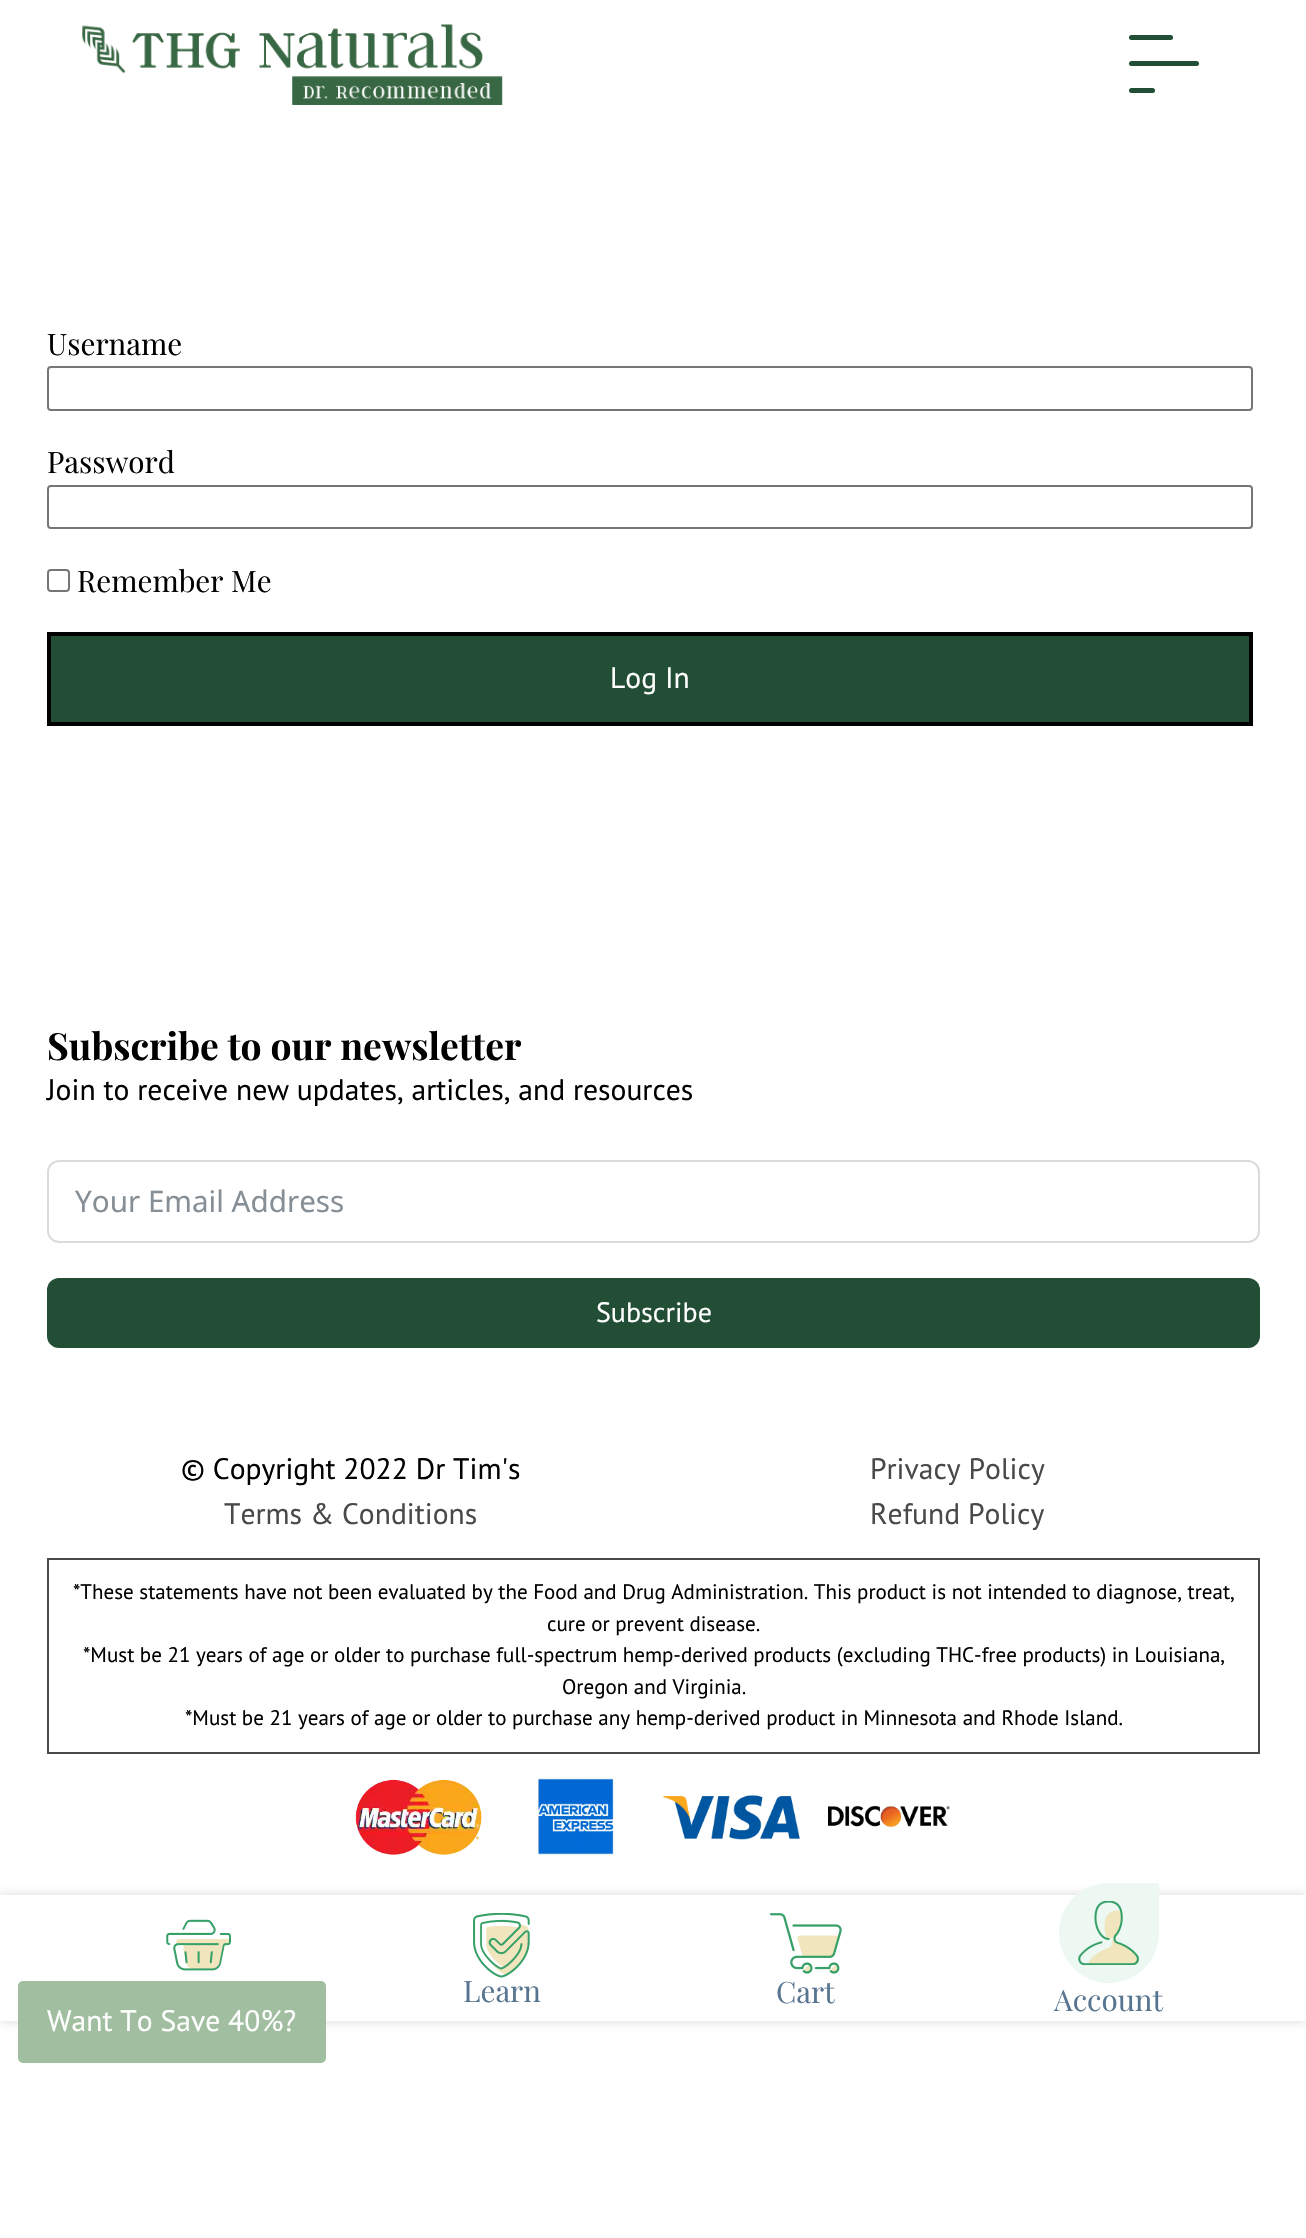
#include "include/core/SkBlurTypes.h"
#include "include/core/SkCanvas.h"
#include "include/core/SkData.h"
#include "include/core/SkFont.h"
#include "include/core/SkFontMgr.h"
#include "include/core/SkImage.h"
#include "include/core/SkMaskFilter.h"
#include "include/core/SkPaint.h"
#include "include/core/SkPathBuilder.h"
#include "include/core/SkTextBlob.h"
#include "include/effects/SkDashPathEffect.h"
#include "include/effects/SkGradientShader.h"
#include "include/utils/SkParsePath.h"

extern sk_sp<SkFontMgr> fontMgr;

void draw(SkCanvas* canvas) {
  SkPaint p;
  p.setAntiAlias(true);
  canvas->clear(SK_ColorWHITE);
  canvas->drawImageRect(SkImages::DeferredFromEncodedData(SkData::MakeFromFileName("images/1.png")), SkRect::MakeLTRB(82, 24, 503, 105), SkSamplingOptions());
  p.setColor(SkColorSetRGB(33, 78, 52));
  canvas->drawRoundRect(SkRect::MakeLTRB(1129, 35, 1173, 40), 2.5f, 2.5f, p);
  canvas->drawRoundRect(SkRect::MakeLTRB(1129, 61, 1199, 66), 2.5f, 2.5f, p);
  canvas->drawRoundRect(SkRect::MakeLTRB(1129, 88, 1155, 93), 2.5f, 2.5f, p);
  p.setStyle(SkPaint::kStroke_Style);
  p.setStrokeWidth(2);
  p.setColor(SkColorSetRGB(118, 118, 118));
  canvas->drawRoundRect(SkRect::MakeLTRB(48, 367, 1252, 410), 3, 3, p);
  canvas->drawRoundRect(SkRect::MakeLTRB(48, 486, 1252, 528), 3, 3, p);
  canvas->drawRoundRect(SkRect::MakeLTRB(48, 570, 69, 591), 3, 3, p);
  p.setStyle(SkPaint::kFill_Style);
  p.setColor(SkColorSetRGB(33, 78, 52));
  canvas->drawRect(SkRect::MakeLTRB(49, 634, 1251, 724), p);
  p.setStyle(SkPaint::kStroke_Style);
  p.setStrokeWidth(4);
  p.setColor(SK_ColorBLACK);
  canvas->drawRect(SkRect::MakeLTRB(49, 634, 1251, 724), p);
  p.setStrokeWidth(2);
  p.setColor(SkColorSetRGB(218, 219, 221));
  canvas->drawRoundRect(SkRect::MakeLTRB(48, 1161, 1259, 1242), 11, 11, p);
  p.setStyle(SkPaint::kFill_Style);
  p.setColor(SkColorSetRGB(33, 78, 52));
  canvas->drawRoundRect(SkRect::MakeLTRB(47, 1278, 1260, 1348), 12, 12, p);
  p.setStyle(SkPaint::kStroke_Style);
  p.setColor(SkColorSetRGB(73, 73, 73));
  canvas->drawRect(SkRect::MakeLTRB(48, 1559, 1259, 1753), p);
  canvas->drawImageRect(SkImages::DeferredFromEncodedData(SkData::MakeFromFileName("images/2.png")), SkRect::MakeLTRB(355, 1779, 482, 1855), SkSamplingOptions());
  canvas->drawImageRect(SkImages::DeferredFromEncodedData(SkData::MakeFromFileName("images/3.png")), SkRect::MakeLTRB(538, 1778, 614, 1855), SkSamplingOptions());
  canvas->drawImageRect(SkImages::DeferredFromEncodedData(SkData::MakeFromFileName("images/4.png")), SkRect::MakeLTRB(663, 1795, 800, 1840), SkSamplingOptions());
  canvas->drawImageRect(SkImages::DeferredFromEncodedData(SkData::MakeFromFileName("images/5.png")), SkRect::MakeLTRB(828, 1805, 950, 1828), SkSamplingOptions());
  canvas->save();
  canvas->clipPath(SkPathBuilder(SkPathFillType::kEvenOdd).moveTo(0, 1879).lineTo(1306, 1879).lineTo(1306, 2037).lineTo(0, 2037).close().moveTo(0, 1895).lineTo(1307, 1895).lineTo(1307, 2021).lineTo(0, 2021).close().detach(), true);
  p.setStyle(SkPaint::kFill_Style);
  p.setColor(SkColorSetARGB(54, 73, 73, 73));
  p.setMaskFilter(SkMaskFilter::MakeBlur(kNormal_SkBlurStyle, 5));
  canvas->drawRect(SkRect::MakeLTRB(0, 1895, 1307, 2021), p);
  p.setMaskFilter(nullptr);
  canvas->restore();
  p.setColor(SkColorSetRGB(161, 191, 160));
  canvas->drawRoundRect(SkRect::MakeLTRB(19, 1982, 325, 2062), 4, 4, p);
  p.setStyle(SkPaint::kStroke_Style);
  canvas->drawRoundRect(SkRect::MakeLTRB(19, 1982, 325, 2062), 4, 4, p);
  canvas->drawImageRect(SkImages::DeferredFromEncodedData(SkData::MakeFromFileName("images/6.png")), SkRect::MakeLTRB(166, 1919, 231, 1971), SkSamplingOptions());
  canvas->drawImageRect(SkImages::DeferredFromEncodedData(SkData::MakeFromFileName("images/7.png")), SkRect::MakeLTRB(473, 1913, 530, 1978), SkSamplingOptions());
  canvas->drawImageRect(SkImages::DeferredFromEncodedData(SkData::MakeFromFileName("images/8.png")), SkRect::MakeLTRB(770, 1913, 842, 1974), SkSamplingOptions());
  p.setStyle(SkPaint::kFill_Style);
  p.setColor(SkColorSetRGB(236, 248, 241));
  canvas->drawPath(SkPathBuilder().moveTo(1109, 1883).lineTo(1157, 1883).cubicTo(1158, 1883, 1159, 1884, 1159, 1885).lineTo(1159, 1933).cubicTo(1159, 1960.5f, 1136.5f, 1983, 1109, 1983).cubicTo(1081.5f, 1983, 1059, 1960.5f, 1059, 1933).cubicTo(1059, 1905.5f, 1081.5f, 1883, 1109, 1883).close().detach(), p);
  canvas->drawImageRect(SkImages::DeferredFromEncodedData(SkData::MakeFromFileName("images/9.png")), SkRect::MakeLTRB(1078, 1901, 1139, 1965), SkSamplingOptions());
  SkFont font1(fontMgr->matchFamilyStyle("Playfair Display", SkFontStyle::Normal()), 29.6f);
  font1.setSubpixel(true);
  p.setColor(SK_ColorBLACK);
  canvas->drawString("Username", 47, 355, font1, p);
  canvas->drawString("Password", 47, 473, font1, p);
  canvas->drawString("Remember Me", 77, 592, font1, p);
  SkFont font2(fontMgr->matchFamilyStyle("PT Sans", SkFontStyle::Normal()), 29.6f);
  font2.setSubpixel(true);
  p.setColor(SK_ColorWHITE);
  canvas->drawString("Log In", 610, 688, font2, p);
  SkFont font3(fontMgr->matchFamilyStyle("Playfair Display", SkFontStyle::Bold()), 37.3f);
  font3.setSubpixel(true);
  p.setColor(SK_ColorBLACK);
  canvas->drawString("Subscribe to our newsletter", 47, 1060, font3, p);
  canvas->drawString("Join to receive new updates, articles, and resources", 47, 1100, font2, p);
  SkFont font4(fontMgr->matchFamilyStyle("Noto Sans", SkFontStyle::Normal()), 29.6f);
  font4.setSubpixel(true);
  p.setColor(SkColorSetRGB(134, 142, 150));
  canvas->drawString("Your Email Address", 75, 1212, font4, p);
  SkFont font5(fontMgr->matchFamilyStyle("PT Sans", SkFontStyle::Normal()), 28);
  font5.setSubpixel(true);
  p.setColor(SK_ColorWHITE);
  canvas->drawString("Subscribe", 596, 1322, font5, p);
  p.setColor(SK_ColorBLACK);
  canvas->drawString("© Copyright 2022 Dr Tim's", 181, 1479, font2, p);
  p.setColor(SkColorSetRGB(73, 73, 73));
  canvas->drawString("Privacy Policy", 870, 1479, font2, p);
  canvas->drawString("Terms & Conditions", 224, 1524, font2, p);
  canvas->drawString("Refund Policy", 870, 1524, font2, p);
  SkFont font6(fontMgr->matchFamilyStyle("PT Sans", SkFontStyle::Normal()), 21);
  font6.setSubpixel(true);
  p.setColor(SK_ColorBLACK);
  canvas->drawString("*These statements have not been evaluated by the Food and Drug Administration. This product is not intended to diagnose, treat,", 73, 1599, font6, p);
  canvas->drawString("cure or prevent disease.", 547, 1631, font6, p);
  canvas->drawString("*Must be 21 years of age or older to purchase full-spectrum hemp-derived products (excluding THC-free products) in Louisiana,", 83, 1662, font6, p);
  canvas->drawString("Oregon and Virginia.", 562, 1694, font6, p);
  canvas->drawString("*Must be 21 years of age or older to purchase any hemp-derived product in Minnesota and Rhode Island.", 185, 1725, font6, p);
  p.setColor(SK_ColorWHITE);
  canvas->drawString("Want To Save 40%?", 47, 2031, font2, p);
  p.setColor(SkColorSetRGB(87, 117, 144));
  canvas->drawString("Learn", 463, 2002, font1, p);
  canvas->drawString("Cart", 776, 2003, font1, p);
  canvas->drawString("Account", 1054, 2011, font1, p);
}
